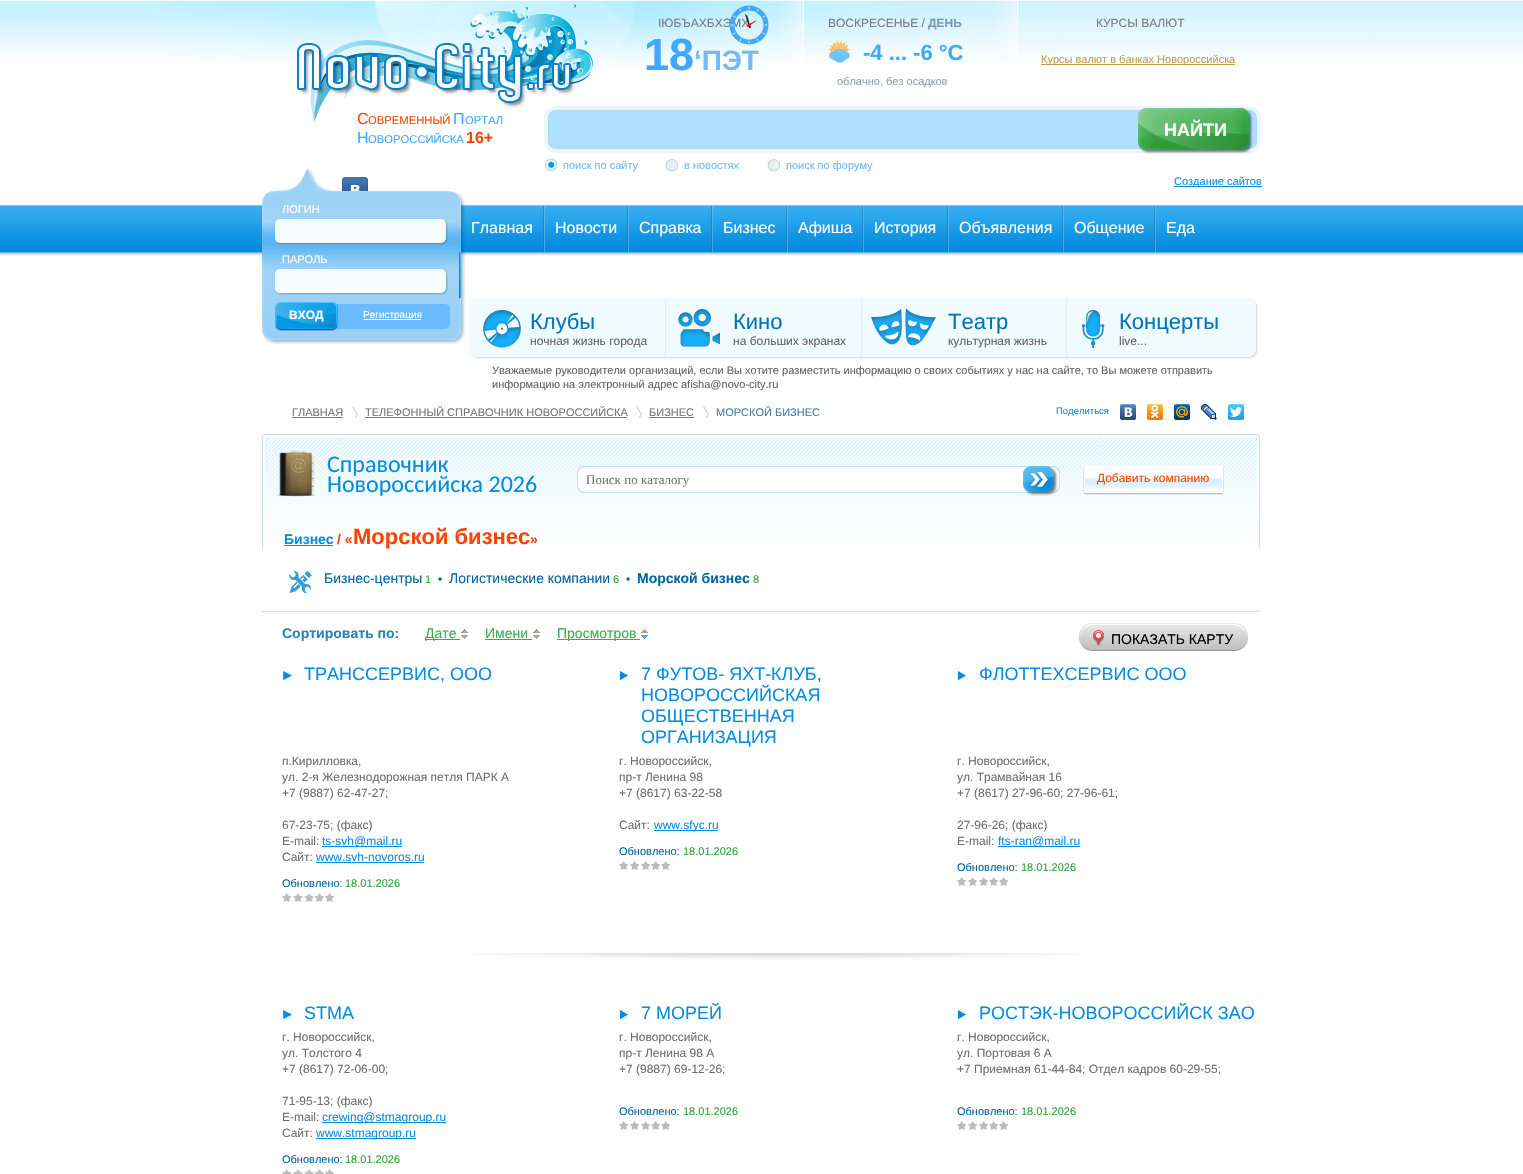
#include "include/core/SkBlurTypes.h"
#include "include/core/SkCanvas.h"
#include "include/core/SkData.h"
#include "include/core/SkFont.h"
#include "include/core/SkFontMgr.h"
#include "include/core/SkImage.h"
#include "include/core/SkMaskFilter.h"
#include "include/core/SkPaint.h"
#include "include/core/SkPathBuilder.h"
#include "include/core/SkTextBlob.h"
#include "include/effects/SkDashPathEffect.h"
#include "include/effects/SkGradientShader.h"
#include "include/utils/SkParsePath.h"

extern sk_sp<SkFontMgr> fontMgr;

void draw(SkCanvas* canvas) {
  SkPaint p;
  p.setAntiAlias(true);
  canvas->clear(SK_ColorWHITE);
  canvas->drawImageRect(SkImages::DeferredFromEncodedData(SkData::MakeFromFileName("images/1.png")), SkRect::MakeLTRB(0, 0, 1523, 68), SkSamplingOptions());
  canvas->drawImageRect(SkImages::DeferredFromEncodedData(SkData::MakeFromFileName("images/2.png")), SkRect::MakeLTRB(297, 3, 593, 122), SkSamplingOptions());
  canvas->drawImageRect(SkImages::DeferredFromEncodedData(SkData::MakeFromFileName("images/3.png")), SkRect::MakeLTRB(778, 0, 804, 64), SkSamplingOptions());
  canvas->drawImageRect(SkImages::DeferredFromEncodedData(SkData::MakeFromFileName("images/6.png")), SkRect::MakeLTRB(994, 1, 1018, 61), SkSamplingOptions());
  canvas->drawImageRect(SkImages::DeferredFromEncodedData(SkData::MakeFromFileName("images/7.png")), SkRect::MakeLTRB(827, 40, 851, 63), SkSamplingOptions());
  p.setColor(SkColorSetRGB(190, 155, 79));
  canvas->drawRect(SkRect::MakeLTRB(1041, 64, 1235, 65), p);
  canvas->drawImageRect(SkImages::DeferredFromEncodedData(SkData::MakeFromFileName("images/8.png")), SkRect::MakeLTRB(544, 106, 1261, 153), SkSamplingOptions());
  canvas->drawImageRect(SkImages::DeferredFromEncodedData(SkData::MakeFromFileName("images/9.png")), SkRect::MakeLTRB(1138, 108, 1253, 154), SkSamplingOptions());
  canvas->drawImageRect(SkImages::DeferredFromEncodedData(SkData::MakeFromFileName("images/10.png")), SkRect::MakeLTRB(545, 158, 557, 171), SkSamplingOptions());
  canvas->drawImageRect(SkImages::DeferredFromEncodedData(SkData::MakeFromFileName("images/11.png")), SkRect::MakeLTRB(665, 159, 678, 172), SkSamplingOptions());
  canvas->drawImageRect(SkImages::DeferredFromEncodedData(SkData::MakeFromFileName("images/11.png")), SkRect::MakeLTRB(767, 159, 780, 172), SkSamplingOptions());
  p.setColor(SkColorSetRGB(6, 141, 224));
  canvas->drawRect(SkRect::MakeLTRB(1174, 186, 1262, 187), p);
  canvas->drawImageRect(SkImages::DeferredFromEncodedData(SkData::MakeFromFileName("images/12.png")), SkRect::MakeLTRB(0, 204, 1523, 256), SkSamplingOptions());
  canvas->drawImageRect(SkImages::DeferredFromEncodedData(SkData::MakeFromFileName("images/14.png")), SkRect::MakeLTRB(261, 168, 466, 345), SkSamplingOptions());
  canvas->drawImageRect(SkImages::DeferredFromEncodedData(SkData::MakeFromFileName("images/13.png")), SkRect::MakeLTRB(342, 177, 368, 191), SkSamplingOptions());
  canvas->drawImageRect(SkImages::DeferredFromEncodedData(SkData::MakeFromFileName("images/15.png")), SkRect::MakeLTRB(275, 219, 448, 245), SkSamplingOptions());
  canvas->drawImageRect(SkImages::DeferredFromEncodedData(SkData::MakeFromFileName("images/16.png")), SkRect::MakeLTRB(275, 269, 448, 295), SkSamplingOptions());
  canvas->drawImageRect(SkImages::DeferredFromEncodedData(SkData::MakeFromFileName("images/18.png")), SkRect::MakeLTRB(335, 304, 450, 329), SkSamplingOptions());
  canvas->drawImageRect(SkImages::DeferredFromEncodedData(SkData::MakeFromFileName("images/17.png")), SkRect::MakeLTRB(275, 302, 338, 331), SkSamplingOptions());
  p.setColor(SK_ColorWHITE);
  canvas->drawRect(SkRect::MakeLTRB(363, 319, 421, 320), p);
  canvas->drawImageRect(SkImages::DeferredFromEncodedData(SkData::MakeFromFileName("images/19.png")), SkRect::MakeLTRB(543, 206, 545, 252), SkSamplingOptions());
  canvas->drawImageRect(SkImages::DeferredFromEncodedData(SkData::MakeFromFileName("images/19.png")), SkRect::MakeLTRB(627, 206, 629, 252), SkSamplingOptions());
  canvas->drawImageRect(SkImages::DeferredFromEncodedData(SkData::MakeFromFileName("images/20.png")), SkRect::MakeLTRB(711, 206, 713, 252), SkSamplingOptions());
  canvas->drawImageRect(SkImages::DeferredFromEncodedData(SkData::MakeFromFileName("images/19.png")), SkRect::MakeLTRB(786, 206, 788, 252), SkSamplingOptions());
  canvas->drawImageRect(SkImages::DeferredFromEncodedData(SkData::MakeFromFileName("images/20.png")), SkRect::MakeLTRB(862, 206, 864, 252), SkSamplingOptions());
  canvas->drawImageRect(SkImages::DeferredFromEncodedData(SkData::MakeFromFileName("images/19.png")), SkRect::MakeLTRB(947, 206, 949, 252), SkSamplingOptions());
  canvas->drawImageRect(SkImages::DeferredFromEncodedData(SkData::MakeFromFileName("images/19.png")), SkRect::MakeLTRB(1062, 206, 1064, 252), SkSamplingOptions());
  canvas->drawImageRect(SkImages::DeferredFromEncodedData(SkData::MakeFromFileName("images/20.png")), SkRect::MakeLTRB(1154, 206, 1156, 252), SkSamplingOptions());
  canvas->drawImageRect(SkImages::DeferredFromEncodedData(SkData::MakeFromFileName("images/21.png")), SkRect::MakeLTRB(459, 252, 462, 298), SkSamplingOptions());
  canvas->drawImageRect(SkImages::DeferredFromEncodedData(SkData::MakeFromFileName("images/22.png")), SkRect::MakeLTRB(469, 298, 1258, 359), SkSamplingOptions());
  canvas->drawImageRect(SkImages::DeferredFromEncodedData(SkData::MakeFromFileName("images/23.png")), SkRect::MakeLTRB(482, 309, 522, 349), SkSamplingOptions());
  canvas->drawImageRect(SkImages::DeferredFromEncodedData(SkData::MakeFromFileName("images/24.png")), SkRect::MakeLTRB(664, 299, 666, 357), SkSamplingOptions());
  canvas->drawImageRect(SkImages::DeferredFromEncodedData(SkData::MakeFromFileName("images/25.png")), SkRect::MakeLTRB(677, 308, 721, 348), SkSamplingOptions());
  canvas->drawImageRect(SkImages::DeferredFromEncodedData(SkData::MakeFromFileName("images/24.png")), SkRect::MakeLTRB(860, 299, 862, 357), SkSamplingOptions());
  canvas->drawImageRect(SkImages::DeferredFromEncodedData(SkData::MakeFromFileName("images/26.png")), SkRect::MakeLTRB(870, 308, 937, 346), SkSamplingOptions());
  canvas->drawImageRect(SkImages::DeferredFromEncodedData(SkData::MakeFromFileName("images/24.png")), SkRect::MakeLTRB(1065, 299, 1067, 357), SkSamplingOptions());
  canvas->drawImageRect(SkImages::DeferredFromEncodedData(SkData::MakeFromFileName("images/27.png")), SkRect::MakeLTRB(1081, 309, 1105, 349), SkSamplingOptions());
  p.setColor(SkColorSetRGB(120, 120, 120));
  canvas->drawRect(SkRect::MakeLTRB(292, 417, 343, 418), p);
  canvas->drawImageRect(SkImages::DeferredFromEncodedData(SkData::MakeFromFileName("images/28.png")), SkRect::MakeLTRB(352, 406, 358, 418), SkSamplingOptions());
  canvas->drawRect(SkRect::MakeLTRB(365, 417, 627, 418), p);
  canvas->drawImageRect(SkImages::DeferredFromEncodedData(SkData::MakeFromFileName("images/28.png")), SkRect::MakeLTRB(636, 406, 642, 418), SkSamplingOptions());
  canvas->drawRect(SkRect::MakeLTRB(649, 417, 694, 418), p);
  canvas->drawImageRect(SkImages::DeferredFromEncodedData(SkData::MakeFromFileName("images/28.png")), SkRect::MakeLTRB(703, 406, 709, 418), SkSamplingOptions());
  canvas->drawImageRect(SkImages::DeferredFromEncodedData(SkData::MakeFromFileName("images/29.png")), SkRect::MakeLTRB(1120, 404, 1136, 420), SkSamplingOptions());
  canvas->drawImageRect(SkImages::DeferredFromEncodedData(SkData::MakeFromFileName("images/30.png")), SkRect::MakeLTRB(1147, 404, 1163, 420), SkSamplingOptions());
  canvas->drawImageRect(SkImages::DeferredFromEncodedData(SkData::MakeFromFileName("images/31.png")), SkRect::MakeLTRB(1174, 404, 1190, 420), SkSamplingOptions());
  canvas->drawImageRect(SkImages::DeferredFromEncodedData(SkData::MakeFromFileName("images/32.png")), SkRect::MakeLTRB(1201, 404, 1217, 420), SkSamplingOptions());
  canvas->drawImageRect(SkImages::DeferredFromEncodedData(SkData::MakeFromFileName("images/33.png")), SkRect::MakeLTRB(1228, 404, 1244, 420), SkSamplingOptions());
  canvas->drawImageRect(SkImages::DeferredFromEncodedData(SkData::MakeFromFileName("images/34.png")), SkRect::MakeLTRB(262, 434, 1260, 548), SkSamplingOptions());
  canvas->drawImageRect(SkImages::DeferredFromEncodedData(SkData::MakeFromFileName("images/35.png")), SkRect::MakeLTRB(276, 449, 316, 497), SkSamplingOptions());
  canvas->drawImageRect(SkImages::DeferredFromEncodedData(SkData::MakeFromFileName("images/36.png")), SkRect::MakeLTRB(577, 466, 584, 493), SkSamplingOptions());
  canvas->drawImageRect(SkImages::DeferredFromEncodedData(SkData::MakeFromFileName("images/37.png")), SkRect::MakeLTRB(584, 466, 1060, 493), SkSamplingOptions());
  canvas->drawImageRect(SkImages::DeferredFromEncodedData(SkData::MakeFromFileName("images/38.png")), SkRect::MakeLTRB(1023, 466, 1058, 496), SkSamplingOptions());
  canvas->drawImageRect(SkImages::DeferredFromEncodedData(SkData::MakeFromFileName("images/39.png")), SkRect::MakeLTRB(1083, 466, 1087, 495), SkSamplingOptions());
  canvas->drawImageRect(SkImages::DeferredFromEncodedData(SkData::MakeFromFileName("images/40.png")), SkRect::MakeLTRB(1087, 466, 1224, 495), SkSamplingOptions());
  p.setColor(SkColorSetRGB(6, 141, 224));
  canvas->drawRect(SkRect::MakeLTRB(284, 545, 333, 546), p);
  canvas->drawImageRect(SkImages::DeferredFromEncodedData(SkData::MakeFromFileName("images/41.png")), SkRect::MakeLTRB(289, 570, 312, 594), SkSamplingOptions());
  p.setColor(SkColorSetRGB(198, 222, 228));
  canvas->drawRect(SkRect::MakeLTRB(262, 611, 1260, 612), p);
  p.setColor(SkColorSetRGB(59, 175, 72));
  canvas->drawRect(SkRect::MakeLTRB(425, 639, 460, 640), p);
  canvas->drawImageRect(SkImages::DeferredFromEncodedData(SkData::MakeFromFileName("images/42.png")), SkRect::MakeLTRB(461, 629, 468, 639), SkSamplingOptions());
  canvas->drawRect(SkRect::MakeLTRB(485, 639, 532, 640), p);
  canvas->drawImageRect(SkImages::DeferredFromEncodedData(SkData::MakeFromFileName("images/42.png")), SkRect::MakeLTRB(533, 629, 540, 639), SkSamplingOptions());
  canvas->drawRect(SkRect::MakeLTRB(557, 639, 640, 640), p);
  canvas->drawImageRect(SkImages::DeferredFromEncodedData(SkData::MakeFromFileName("images/43.png")), SkRect::MakeLTRB(641, 629, 648, 639), SkSamplingOptions());
  canvas->drawImageRect(SkImages::DeferredFromEncodedData(SkData::MakeFromFileName("images/44.png")), SkRect::MakeLTRB(1233, 623, 1248, 651), SkSamplingOptions());
  canvas->drawImageRect(SkImages::DeferredFromEncodedData(SkData::MakeFromFileName("images/45.png")), SkRect::MakeLTRB(1079, 623, 1233, 651), SkSamplingOptions());
  canvas->drawImageRect(SkImages::DeferredFromEncodedData(SkData::MakeFromFileName("images/46.png")), SkRect::MakeLTRB(1093, 630, 1104, 646), SkSamplingOptions());
  canvas->drawImageRect(SkImages::DeferredFromEncodedData(SkData::MakeFromFileName("images/47.png")), SkRect::MakeLTRB(282, 671, 292, 681), SkSamplingOptions());
  p.setColor(SkColorSetRGB(6, 141, 224));
  canvas->drawRect(SkRect::MakeLTRB(322, 846, 402, 847), p);
  canvas->drawRect(SkRect::MakeLTRB(316, 862, 424, 863), p);
  canvas->drawImageRect(SkImages::DeferredFromEncodedData(SkData::MakeFromFileName("images/48.png")), SkRect::MakeLTRB(282, 893, 334, 902), SkSamplingOptions());
  canvas->drawImageRect(SkImages::DeferredFromEncodedData(SkData::MakeFromFileName("images/49.png")), SkRect::MakeLTRB(619, 671, 628, 681), SkSamplingOptions());
  canvas->drawRect(SkRect::MakeLTRB(654, 830, 718, 831), p);
  canvas->drawImageRect(SkImages::DeferredFromEncodedData(SkData::MakeFromFileName("images/50.png")), SkRect::MakeLTRB(619, 861, 670, 870), SkSamplingOptions());
  canvas->drawImageRect(SkImages::DeferredFromEncodedData(SkData::MakeFromFileName("images/49.png")), SkRect::MakeLTRB(957, 671, 966, 681), SkSamplingOptions());
  canvas->drawRect(SkRect::MakeLTRB(998, 846, 1080, 847), p);
  canvas->drawImageRect(SkImages::DeferredFromEncodedData(SkData::MakeFromFileName("images/50.png")), SkRect::MakeLTRB(957, 877, 1008, 886), SkSamplingOptions());
  canvas->drawImageRect(SkImages::DeferredFromEncodedData(SkData::MakeFromFileName("images/51.png")), SkRect::MakeLTRB(469, 953, 1083, 960), SkSamplingOptions());
  canvas->drawImageRect(SkImages::DeferredFromEncodedData(SkData::MakeFromFileName("images/47.png")), SkRect::MakeLTRB(282, 1010, 292, 1020), SkSamplingOptions());
  canvas->drawRect(SkRect::MakeLTRB(322, 1122, 446, 1123), p);
  canvas->drawRect(SkRect::MakeLTRB(316, 1138, 416, 1139), p);
  canvas->drawImageRect(SkImages::DeferredFromEncodedData(SkData::MakeFromFileName("images/52.png")), SkRect::MakeLTRB(282, 1169, 334, 1174), SkSamplingOptions());
  canvas->drawImageRect(SkImages::DeferredFromEncodedData(SkData::MakeFromFileName("images/49.png")), SkRect::MakeLTRB(619, 1010, 628, 1020), SkSamplingOptions());
  canvas->drawImageRect(SkImages::DeferredFromEncodedData(SkData::MakeFromFileName("images/50.png")), SkRect::MakeLTRB(619, 1121, 670, 1130), SkSamplingOptions());
  canvas->drawImageRect(SkImages::DeferredFromEncodedData(SkData::MakeFromFileName("images/49.png")), SkRect::MakeLTRB(957, 1010, 966, 1020), SkSamplingOptions());
  canvas->drawImageRect(SkImages::DeferredFromEncodedData(SkData::MakeFromFileName("images/50.png")), SkRect::MakeLTRB(957, 1121, 1008, 1130), SkSamplingOptions());
  SkFont font1(fontMgr->matchFamilyStyle("Liberation Sans", SkFontStyle::Normal()), 12);
  font1.setSubpixel(true);
  p.setColor(SkColorSetRGB(122, 123, 126));
  canvas->drawString("ІЮБЪАХБХЭМХ", 658, 27, font1, p);
  canvas->drawImageRect(SkImages::DeferredFromEncodedData(SkData::MakeFromFileName("images/4.png")), SkRect::MakeLTRB(729, 5, 769, 45), SkSamplingOptions());
  canvas->drawImageRect(SkImages::DeferredFromEncodedData(SkData::MakeFromFileName("images/5.png")), SkRect::MakeLTRB(745, 14, 756, 29), SkSamplingOptions());
  SkFont font2(fontMgr->matchFamilyStyle("Liberation Sans", SkFontStyle::Bold()), 45);
  font2.setSubpixel(true);
  p.setColor(SkColorSetRGB(65, 168, 255));
  canvas->drawString("18", 644, 70, font2, p);
  SkFont font3(fontMgr->matchFamilyStyle("Liberation Sans", SkFontStyle::Bold()), 28);
  font3.setSubpixel(true);
  p.setColor(SkColorSetRGB(117, 186, 244));
  canvas->drawString("‘ПЭТ", 694, 70, font3, p);
  p.setColor(SkColorSetRGB(122, 123, 126));
  canvas->drawString("ВОСКРЕСЕНЬЕ /", 828, 27, font1, p);
  SkFont font4(fontMgr->matchFamilyStyle("Liberation Sans", SkFontStyle::Bold()), 12);
  font4.setSubpixel(true);
  p.setColor(SkColorSetRGB(121, 154, 183));
  canvas->drawString("ДЕНЬ", 928, 27, font4, p);
  SkFont font5(fontMgr->matchFamilyStyle("Liberation Sans", SkFontStyle::Bold()), 22);
  font5.setSubpixel(true);
  p.setColor(SkColorSetRGB(65, 168, 255));
  canvas->drawString("-4 ... -6 °C", 863, 60, font5, p);
  SkFont font6(fontMgr->matchFamilyStyle("Liberation Sans", SkFontStyle::Normal()), 11);
  font6.setSubpixel(true);
  p.setColor(SkColorSetRGB(136, 164, 185));
  canvas->drawString("облачно, без осадков", 837, 85, font6, p);
  p.setColor(SkColorSetRGB(122, 123, 126));
  canvas->drawString("КУРСЫ ВАЛЮТ", 1096, 27, font1, p);
  p.setColor(SkColorSetRGB(190, 155, 79));
  canvas->drawString("Курсы валют в банках Новороссийска", 1041, 63, font6, p);
  SkFont font7(fontMgr->matchFamilyStyle("Liberation Sans", SkFontStyle::Normal()), 16);
  font7.setSubpixel(true);
  p.setColor(SkColorSetRGB(244, 70, 2));
  canvas->drawString("С", 357, 124, font7, p);
  SkFont font8(fontMgr->matchFamilyStyle("Liberation Sans", SkFontStyle::Normal()), 11.25f);
  font8.setSubpixel(true);
  canvas->drawString("ОВРЕМЕННЫЙ", 368, 124, font8, p);
  p.setColor(SkColorSetRGB(65, 168, 255));
  canvas->drawString("П", 453, 124, font7, p);
  canvas->drawString("ОРТАЛ", 465, 124, font8, p);
  canvas->drawString("Н", 357, 143, font7, p);
  canvas->drawString("ОВОРОССИЙСКА", 368, 143, font8, p);
  SkFont font9(fontMgr->matchFamilyStyle("Liberation Sans", SkFontStyle::Bold()), 16);
  font9.setSubpixel(true);
  p.setColor(SkColorSetRGB(244, 70, 2));
  canvas->drawString("16+", 466, 143, font9, p);
  SkFont font10(fontMgr->matchFamilyStyle("Liberation Sans", SkFontStyle::Bold()), 18);
  font10.setSubpixel(true);
  p.setColor(SK_ColorWHITE);
  canvas->drawString("НАЙТИ", 1164, 136, font10, p);
  p.setColor(SkColorSetRGB(105, 186, 255));
  canvas->drawString("поиск по сайту", 563, 169, font6, p);
  canvas->drawString("в новостях", 684, 169, font6, p);
  canvas->drawString("поиск по форуму", 786, 169, font6, p);
  p.setColor(SkColorSetRGB(6, 141, 224));
  canvas->drawString("Создание сайтов", 1174, 185, font6, p);
  p.setColor(SK_ColorWHITE);
  canvas->drawString("ЛОГИН", 282, 213, font6, p);
  canvas->drawString("ПАРОЛЬ", 282, 263, font6, p);
  canvas->drawString("ВХОД", 289, 319, font4, p);
  SkFont font11(fontMgr->matchFamilyStyle("Liberation Sans", SkFontStyle::Normal()), 10);
  font11.setSubpixel(true);
  canvas->drawString("Регистрация", 363, 318, font11, p);
  canvas->drawString("Главная", 471, 233, font7, p);
  canvas->drawString("Новости", 555, 233, font7, p);
  canvas->drawString("Справка", 639, 233, font7, p);
  canvas->drawString("Бизнес", 723, 233, font7, p);
  canvas->drawString("Афиша", 798, 233, font7, p);
  canvas->drawString("История", 874, 233, font7, p);
  canvas->drawString("Объявления", 959, 233, font7, p);
  canvas->drawString("Общение", 1074, 233, font7, p);
  canvas->drawString("Еда", 1166, 233, font7, p);
  SkFont font12(fontMgr->matchFamilyStyle("Liberation Sans", SkFontStyle::Normal()), 22);
  font12.setSubpixel(true);
  p.setColor(SkColorSetRGB(0, 116, 184));
  canvas->drawString("Клубы", 530, 329, font12, p);
  p.setColor(SkColorSetRGB(102, 97, 93));
  canvas->drawString("ночная жизнь города", 530, 345, font1, p);
  p.setColor(SkColorSetRGB(0, 116, 184));
  canvas->drawString("Кино", 733, 329, font12, p);
  p.setColor(SkColorSetRGB(102, 97, 93));
  canvas->drawString("на больших экранах", 733, 345, font1, p);
  p.setColor(SkColorSetRGB(0, 116, 184));
  canvas->drawString("Театр", 948, 329, font12, p);
  p.setColor(SkColorSetRGB(102, 97, 93));
  canvas->drawString("культурная жизнь", 948, 345, font1, p);
  p.setColor(SkColorSetRGB(0, 116, 184));
  canvas->drawString("Концерты", 1119, 329, font12, p);
  p.setColor(SkColorSetRGB(102, 97, 93));
  canvas->drawString("live...", 1119, 345, font1, p);
  canvas->drawString("Уважаемые руководители организаций, если Вы хотите разместить информацию о своих событиях у нас на сайте, то Вы можете отправить", 492, 374, font6, p);
  canvas->drawString("информацию на электронный адрес afisha@novo-city.ru", 492, 388, font6, p);
  p.setColor(SkColorSetRGB(117, 117, 117));
  canvas->drawString("ГЛАВНАЯ", 292, 416, font6, p);
  canvas->drawString("ТЕЛЕФОННЫЙ СПРАВОЧНИК НОВОРОССИЙСКА", 365, 416, font6, p);
  canvas->drawString("БИЗНЕС", 649, 416, font6, p);
  p.setColor(SkColorSetRGB(69, 122, 167));
  canvas->drawString("МОРСКОЙ БИЗНЕС", 716, 416, font6, p);
  SkFont font13(fontMgr->matchFamilyStyle("Liberation Sans", SkFontStyle::Normal()), 9.5f);
  font13.setSubpixel(true);
  p.setColor(SkColorSetRGB(6, 141, 224));
  canvas->drawString("Поделиться", 1056, 414, font13, p);
  SkFont font14(fontMgr->matchFamilyStyle("Carlito", SkFontStyle::Normal()), 24);
  font14.setSubpixel(true);
  canvas->drawString("Справочник", 327, 472, font14, p);
  canvas->drawString("Новороссийска 2026", 327, 492, font14, p);
  SkFont font15(fontMgr->matchFamilyStyle("Liberation Serif", SkFontStyle::Normal()), 13);
  font15.setSubpixel(true);
  p.setColor(SkColorSetRGB(117, 117, 117));
  canvas->drawString("Поиск по каталогу", 586, 484, font15, p);
  p.setColor(SkColorSetRGB(244, 70, 2));
  canvas->drawString("Добавить компанию", 1097, 482, font1, p);
  SkFont font16(fontMgr->matchFamilyStyle("Liberation Sans", SkFontStyle::Bold()), 14);
  font16.setSubpixel(true);
  p.setColor(SkColorSetRGB(6, 141, 224));
  canvas->drawString("Бизнес", 284, 544, font16, p);
  p.setColor(SkColorSetRGB(244, 70, 2));
  canvas->drawString("/ «", 337, 544, font16, p);
  canvas->drawString("Морской бизнес", 353, 544, font5, p);
  canvas->drawString("»", 530, 544, font16, p);
  SkFont font17(fontMgr->matchFamilyStyle("Liberation Sans", SkFontStyle::Normal()), 14);
  font17.setSubpixel(true);
  p.setColor(SkColorSetRGB(1, 101, 163));
  canvas->drawString("Бизнес-центры", 324, 583, font17, p);
  p.setColor(SkColorSetRGB(47, 161, 60));
  canvas->drawString("1", 425, 583, font6, p);
  p.setColor(SkColorSetRGB(5, 103, 155));
  canvas->drawString("•", 438, 583, font1, p);
  p.setColor(SkColorSetRGB(1, 101, 163));
  canvas->drawString("Логистические компании", 449, 583, font17, p);
  p.setColor(SkColorSetRGB(47, 161, 60));
  canvas->drawString("6", 613, 583, font6, p);
  p.setColor(SkColorSetRGB(5, 103, 155));
  canvas->drawString("•", 626, 583, font1, p);
  p.setColor(SkColorSetRGB(1, 101, 163));
  canvas->drawString("Морской бизнес", 637, 583, font16, p);
  p.setColor(SkColorSetRGB(47, 161, 60));
  canvas->drawString("8", 753, 583, font6, p);
  p.setColor(SkColorSetRGB(42, 131, 181));
  canvas->drawString("Сортировать по:", 282, 638, font16, p);
  p.setColor(SkColorSetRGB(59, 175, 72));
  canvas->drawString("Дате", 425, 638, font17, p);
  canvas->drawString("Имени", 485, 638, font17, p);
  canvas->drawString("Просмотров", 557, 638, font17, p);
  p.setColor(SK_ColorBLACK);
  canvas->drawString("ПОКАЗАТЬ КАРТУ", 1111, 644, font17, p);
  SkFont font18(fontMgr->matchFamilyStyle("Liberation Sans", SkFontStyle::Normal()), 18);
  font18.setSubpixel(true);
  p.setColor(SkColorSetRGB(6, 141, 224));
  canvas->drawString("ТРАНССЕРВИС, ООО", 304, 680, font18, p);
  p.setColor(SkColorSetRGB(109, 109, 109));
  canvas->drawString("п.Кирилловка,", 282, 765, font1, p);
  canvas->drawString("ул. 2-я Железнодорожная петля ПАРК А", 282, 781, font1, p);
  canvas->drawString("+7 (9887) 62-47-27;", 282, 797, font1, p);
  canvas->drawString("67-23-75; (факс)", 282, 829, font1, p);
  canvas->drawString("E-mail:", 282, 845, font1, p);
  p.setColor(SkColorSetRGB(6, 141, 224));
  canvas->drawString("ts-svh@mail.ru", 322, 845, font1, p);
  p.setColor(SkColorSetRGB(109, 109, 109));
  canvas->drawString("Сайт:", 282, 861, font1, p);
  p.setColor(SkColorSetRGB(6, 141, 224));
  canvas->drawString("www.svh-novoros.ru", 316, 861, font1, p);
  p.setColor(SkColorSetRGB(1, 101, 163));
  canvas->drawString("Обновлено:", 282, 887, font6, p);
  p.setColor(SkColorSetRGB(47, 161, 60));
  canvas->drawString("18.01.2026", 345, 887, font6, p);
  p.setColor(SkColorSetRGB(6, 141, 224));
  canvas->drawString("7 ФУТОВ- ЯХТ-КЛУБ,", 641, 680, font18, p);
  canvas->drawString("НОВОРОССИЙСКАЯ", 641, 701, font18, p);
  canvas->drawString("ОБЩЕСТВЕННАЯ", 641, 722, font18, p);
  canvas->drawString("ОРГАНИЗАЦИЯ", 641, 743, font18, p);
  p.setColor(SkColorSetRGB(109, 109, 109));
  canvas->drawString("г. Новороссийск,", 619, 765, font1, p);
  canvas->drawString("пр-т Ленина 98", 619, 781, font1, p);
  canvas->drawString("+7 (8617) 63-22-58", 619, 797, font1, p);
  canvas->drawString("Сайт:", 619, 829, font1, p);
  p.setColor(SkColorSetRGB(6, 141, 224));
  canvas->drawString("www.sfyc.ru", 654, 829, font1, p);
  p.setColor(SkColorSetRGB(1, 101, 163));
  canvas->drawString("Обновлено:", 619, 855, font6, p);
  p.setColor(SkColorSetRGB(47, 161, 60));
  canvas->drawString("18.01.2026", 683, 855, font6, p);
  p.setColor(SkColorSetRGB(6, 141, 224));
  canvas->drawString("ФЛОТТЕХСЕРВИС ООО", 979, 680, font18, p);
  p.setColor(SkColorSetRGB(109, 109, 109));
  canvas->drawString("г. Новороссийск,", 957, 765, font1, p);
  canvas->drawString("ул. Трамвайная 16", 957, 781, font1, p);
  canvas->drawString("+7 (8617) 27-96-60; 27-96-61;", 957, 797, font1, p);
  canvas->drawString("27-96-26; (факс)", 957, 829, font1, p);
  canvas->drawString("E-mail:", 957, 845, font1, p);
  p.setColor(SkColorSetRGB(6, 141, 224));
  canvas->drawString("fts-ran@mail.ru", 998, 845, font1, p);
  p.setColor(SkColorSetRGB(1, 101, 163));
  canvas->drawString("Обновлено:", 957, 871, font6, p);
  p.setColor(SkColorSetRGB(47, 161, 60));
  canvas->drawString("18.01.2026", 1021, 871, font6, p);
  p.setColor(SkColorSetRGB(6, 141, 224));
  canvas->drawString("STMA", 304, 1019, font18, p);
  p.setColor(SkColorSetRGB(109, 109, 109));
  canvas->drawString("г. Новороссийск,", 282, 1041, font1, p);
  canvas->drawString("ул. Толстого 4", 282, 1057, font1, p);
  canvas->drawString("+7 (8617) 72-06-00;", 282, 1073, font1, p);
  canvas->drawString("71-95-13; (факс)", 282, 1105, font1, p);
  canvas->drawString("E-mail:", 282, 1121, font1, p);
  p.setColor(SkColorSetRGB(6, 141, 224));
  canvas->drawString("crewing@stmagroup.ru", 322, 1121, font1, p);
  p.setColor(SkColorSetRGB(109, 109, 109));
  canvas->drawString("Сайт:", 282, 1137, font1, p);
  p.setColor(SkColorSetRGB(6, 141, 224));
  canvas->drawString("www.stmagroup.ru", 316, 1137, font1, p);
  p.setColor(SkColorSetRGB(1, 101, 163));
  canvas->drawString("Обновлено:", 282, 1163, font6, p);
  p.setColor(SkColorSetRGB(47, 161, 60));
  canvas->drawString("18.01.2026", 345, 1163, font6, p);
  canvas->save();
  canvas->clipRect(SkRect::MakeLTRB(619, 1003, 921, 1024));
  p.setColor(SkColorSetRGB(6, 141, 224));
  canvas->drawString("7 МОРЕЙ", 641, 1019, font18, p);
  canvas->restore();
  p.setColor(SkColorSetRGB(109, 109, 109));
  canvas->drawString("г. Новороссийск,", 619, 1041, font1, p);
  canvas->drawString("пр-т Ленина 98 А", 619, 1057, font1, p);
  canvas->drawString("+7 (9887) 69-12-26;", 619, 1073, font1, p);
  p.setColor(SkColorSetRGB(1, 101, 163));
  canvas->drawString("Обновлено:", 619, 1115, font6, p);
  p.setColor(SkColorSetRGB(47, 161, 60));
  canvas->drawString("18.01.2026", 683, 1115, font6, p);
  canvas->save();
  canvas->clipRect(SkRect::MakeLTRB(957, 1003, 1259, 1024));
  p.setColor(SkColorSetRGB(6, 141, 224));
  canvas->drawString("РОСТЭК-НОВОРОССИЙСК ЗАО", 979, 1019, font18, p);
  canvas->restore();
  p.setColor(SkColorSetRGB(109, 109, 109));
  canvas->drawString("г. Новороссийск,", 957, 1041, font1, p);
  canvas->drawString("ул. Портовая 6 А", 957, 1057, font1, p);
  canvas->drawString("+7 Приемная 61-44-84; Отдел кадров 60-29-55;", 957, 1073, font1, p);
  p.setColor(SkColorSetRGB(1, 101, 163));
  canvas->drawString("Обновлено:", 957, 1115, font6, p);
  p.setColor(SkColorSetRGB(47, 161, 60));
  canvas->drawString("18.01.2026", 1021, 1115, font6, p);
}
